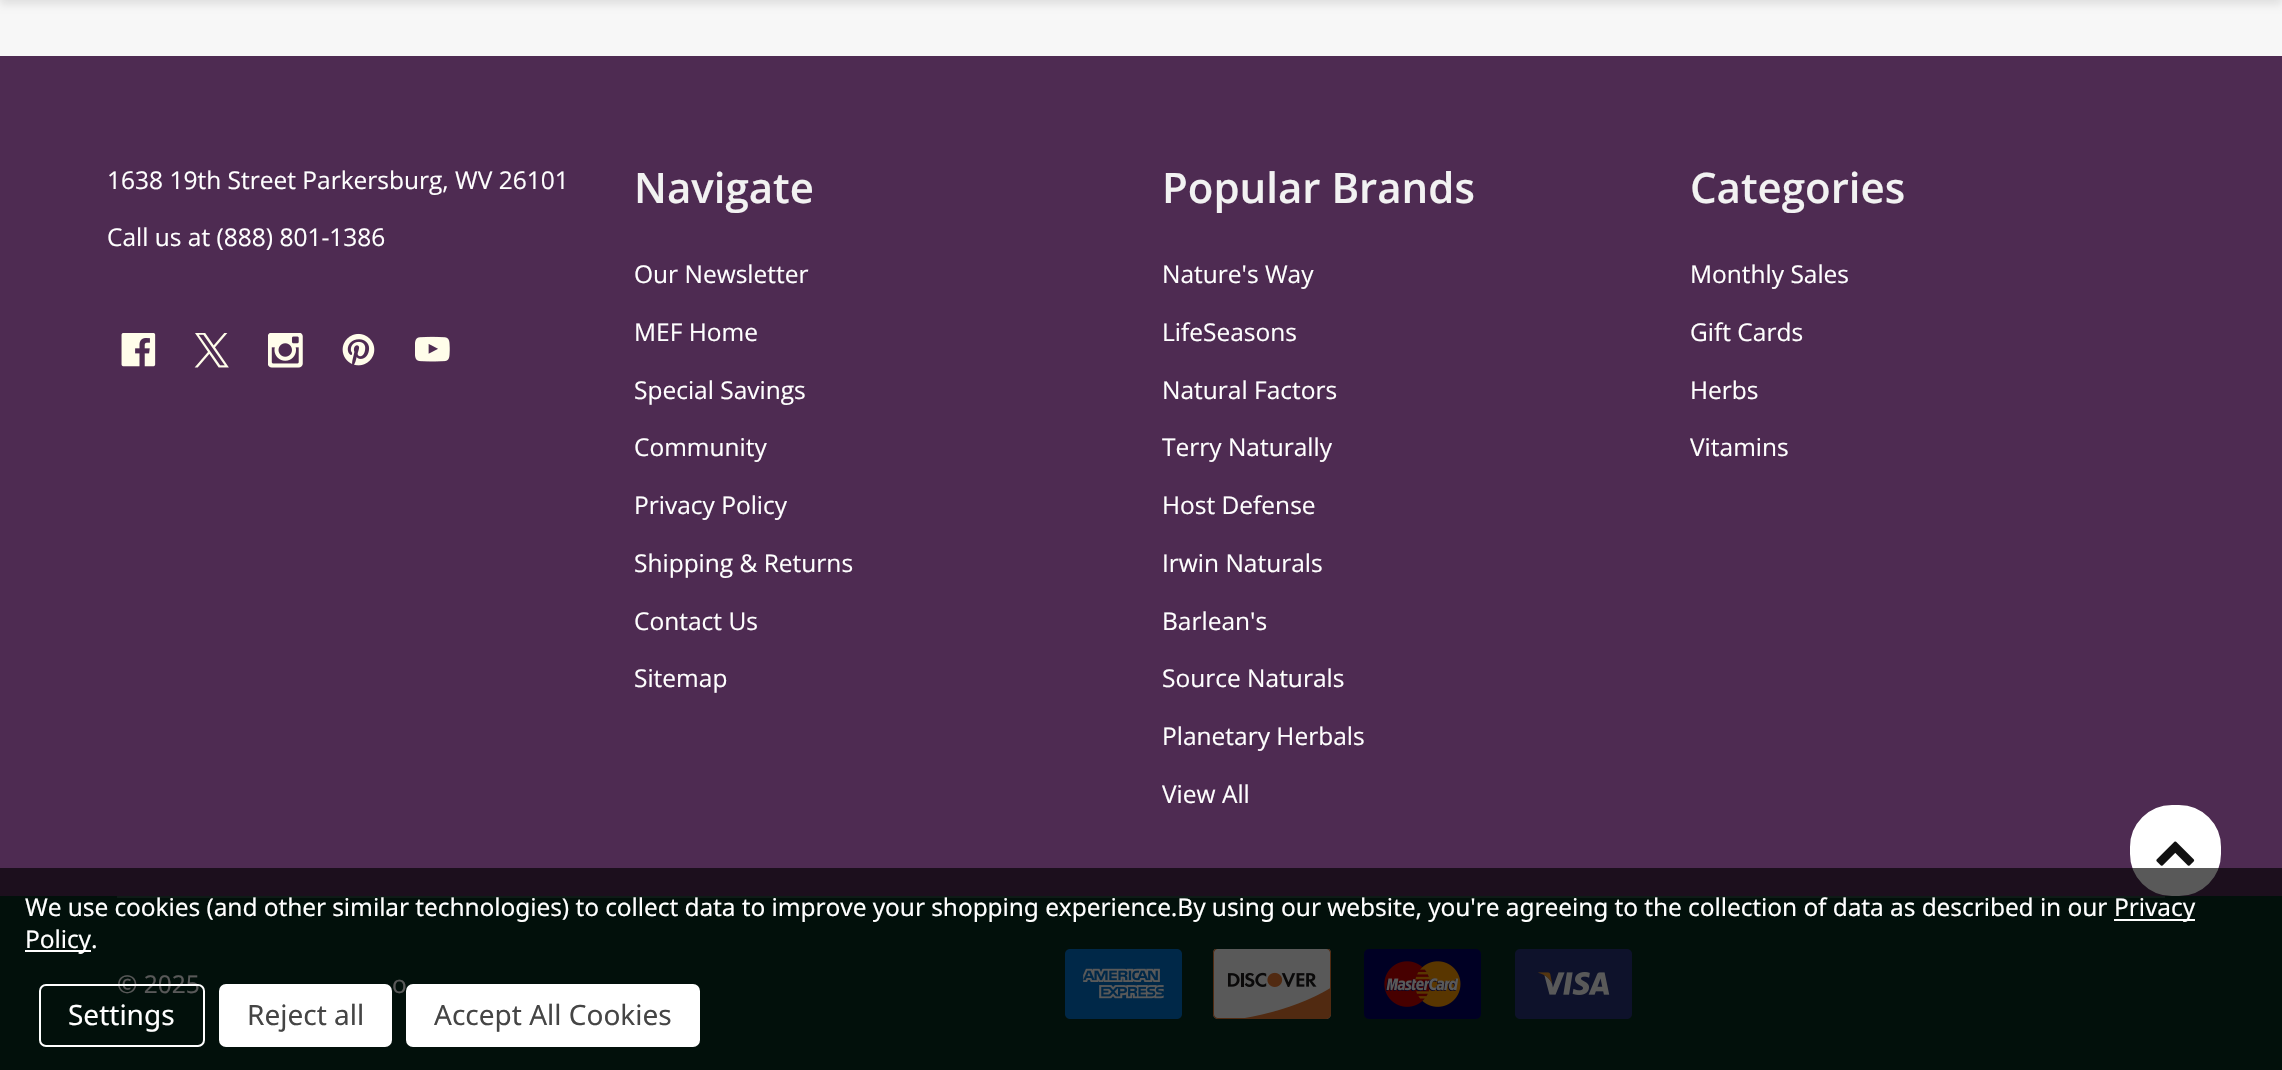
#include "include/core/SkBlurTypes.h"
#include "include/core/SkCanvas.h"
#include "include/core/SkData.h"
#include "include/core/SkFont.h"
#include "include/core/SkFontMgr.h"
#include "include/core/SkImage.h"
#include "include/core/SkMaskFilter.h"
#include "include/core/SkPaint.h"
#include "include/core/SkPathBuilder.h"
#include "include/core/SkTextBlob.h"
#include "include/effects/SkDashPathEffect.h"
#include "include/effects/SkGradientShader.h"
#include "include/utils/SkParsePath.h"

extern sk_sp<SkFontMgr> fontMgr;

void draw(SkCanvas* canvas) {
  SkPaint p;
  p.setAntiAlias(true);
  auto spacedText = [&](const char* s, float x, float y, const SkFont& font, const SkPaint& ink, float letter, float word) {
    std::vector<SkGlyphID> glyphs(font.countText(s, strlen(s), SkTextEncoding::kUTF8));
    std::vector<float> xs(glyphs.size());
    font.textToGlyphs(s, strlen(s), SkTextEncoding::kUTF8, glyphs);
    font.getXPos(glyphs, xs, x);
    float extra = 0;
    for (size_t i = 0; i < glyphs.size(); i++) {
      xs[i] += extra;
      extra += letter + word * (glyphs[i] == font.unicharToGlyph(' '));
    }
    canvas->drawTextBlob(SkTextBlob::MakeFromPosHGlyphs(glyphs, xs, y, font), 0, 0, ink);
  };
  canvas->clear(SkColorSetRGB(78, 43, 82));
  p.setColor(SkColorSetRGB(247, 247, 247));
  canvas->drawRect(SkRect::MakeLTRB(0, 0, 2282, 56), p);
  p.setColor(SkColorSetARGB(26, 0, 0, 0));
  p.setMaskFilter(SkMaskFilter::MakeBlur(kNormal_SkBlurStyle, 4.5f));
  canvas->drawRect(SkRect::MakeLTRB(0, -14, 2282, 4), p);
  p.setMaskFilter(nullptr);
  canvas->drawImageRect(SkImages::DeferredFromEncodedData(SkData::MakeFromFileName("images/1.png")), SkRect::MakeLTRB(121, 333, 156, 367), SkSamplingOptions());
  canvas->drawImageRect(SkImages::DeferredFromEncodedData(SkData::MakeFromFileName("images/2.png")), SkRect::MakeLTRB(194, 333, 229, 368), SkSamplingOptions());
  canvas->drawImageRect(SkImages::DeferredFromEncodedData(SkData::MakeFromFileName("images/3.png")), SkRect::MakeLTRB(268, 333, 303, 368), SkSamplingOptions());
  canvas->drawImageRect(SkImages::DeferredFromEncodedData(SkData::MakeFromFileName("images/4.png")), SkRect::MakeLTRB(342, 333, 375, 366), SkSamplingOptions());
  canvas->drawImageRect(SkImages::DeferredFromEncodedData(SkData::MakeFromFileName("images/5.png")), SkRect::MakeLTRB(415, 336, 450, 362), SkSamplingOptions());
  p.setColor(SkColorSetRGB(5, 44, 30));
  canvas->drawRect(SkRect::MakeLTRB(0, 896, 2282, 1070), p);
  p.setColor(SkColorSetRGB(43, 76, 64));
  canvas->drawRect(SkRect::MakeLTRB(117, 896, 2165, 898), p);
  canvas->drawImageRect(SkImages::DeferredFromEncodedData(SkData::MakeFromFileName("images/6.png")), SkRect::MakeLTRB(1065, 949, 1182, 1019), SkSamplingOptions());
  canvas->drawImageRect(SkImages::DeferredFromEncodedData(SkData::MakeFromFileName("images/7.png")), SkRect::MakeLTRB(1213, 949, 1331, 1019), SkSamplingOptions());
  canvas->drawImageRect(SkImages::DeferredFromEncodedData(SkData::MakeFromFileName("images/8.png")), SkRect::MakeLTRB(1364, 949, 1481, 1019), SkSamplingOptions());
  canvas->drawImageRect(SkImages::DeferredFromEncodedData(SkData::MakeFromFileName("images/9.png")), SkRect::MakeLTRB(1515, 949, 1632, 1019), SkSamplingOptions());
  p.setColor(SK_ColorWHITE);
  canvas->drawRoundRect(SkRect::MakeLTRB(2132, 807, 2219, 894), 40, 40, p);
  p.setStyle(SkPaint::kStroke_Style);
  p.setStrokeWidth(4);
  canvas->drawRoundRect(SkRect::MakeLTRB(2132, 807, 2219, 894), 40, 40, p);
  canvas->drawImageRect(SkImages::DeferredFromEncodedData(SkData::MakeFromFileName("images/10.png")), SkRect::MakeLTRB(2156, 841, 2195, 866), SkSamplingOptions());
  SkFont font1(fontMgr->matchFamilyStyle("Open Sans", SkFontStyle::Normal()), 24.5f);
  font1.setSubpixel(true);
  p.setStyle(SkPaint::kFill_Style);
  canvas->drawString("1638 19th Street Parkersburg, WV 26101", 107, 189, font1, p);
  canvas->drawString("Call us at (888) 801-1386", 107, 246, font1, p);
  SkFont font2(fontMgr->matchFamilyStyle("Open Sans", SkFontStyle(600, SkFontStyle::kNormal_Width, SkFontStyle::kUpright_Slant)), 42);
  font2.setSubpixel(true);
  p.setColor(SkColorSetRGB(242, 242, 242));
  canvas->drawString("Navigate", 634, 203, font2, p);
  p.setColor(SK_ColorWHITE);
  canvas->drawString("Our Newsletter", 634, 283, font1, p);
  canvas->drawString("MEF Home", 634, 341, font1, p);
  canvas->drawString("Special Savings", 634, 399, font1, p);
  canvas->drawString("Community", 634, 456, font1, p);
  canvas->drawString("Privacy Policy", 634, 514, font1, p);
  canvas->drawString("Shipping & Returns", 634, 572, font1, p);
  canvas->drawString("Contact Us", 634, 630, font1, p);
  canvas->drawString("Sitemap", 634, 687, font1, p);
  p.setColor(SkColorSetRGB(242, 242, 242));
  canvas->drawString("Popular Brands", 1162, 203, font2, p);
  p.setColor(SK_ColorWHITE);
  canvas->drawString("Nature's Way", 1162, 283, font1, p);
  canvas->drawString("LifeSeasons", 1162, 341, font1, p);
  canvas->drawString("Natural Factors", 1162, 399, font1, p);
  canvas->drawString("Terry Naturally", 1162, 456, font1, p);
  canvas->drawString("Host Defense", 1162, 514, font1, p);
  canvas->drawString("Irwin Naturals", 1162, 572, font1, p);
  canvas->drawString("Barlean's", 1162, 630, font1, p);
  canvas->drawString("Source Naturals", 1162, 687, font1, p);
  canvas->drawString("Planetary Herbals", 1162, 745, font1, p);
  canvas->drawString("View All", 1162, 803, font1, p);
  p.setColor(SkColorSetRGB(242, 242, 242));
  canvas->drawString("Categories", 1690, 203, font2, p);
  p.setColor(SK_ColorWHITE);
  canvas->drawString("Monthly Sales", 1690, 283, font1, p);
  canvas->drawString("Gift Cards", 1690, 341, font1, p);
  canvas->drawString("Herbs", 1690, 399, font1, p);
  canvas->drawString("Vitamins", 1690, 456, font1, p);
  canvas->drawString("© 2025", 117, 993, font1, p);
  canvas->drawString("o", 392, 993, font1, p);
  p.setColor(SkColorSetARGB(166, 0, 0, 0));
  canvas->drawRect(SkRect::MakeLTRB(0, 868, 2282, 1070), p);
  SkFont font3(fontMgr->matchFamilyStyle("Noto Sans", SkFontStyle::Normal()), 24.5f);
  font3.setSubpixel(true);
  p.setColor(SK_ColorWHITE);
  spacedText("We use cookies (and other similar technologies) to collect data to improve your shopping experience.By using our website, you're agreeing to the collection of data as described in our", 25, 916, font3, p, -0.09f, 0);
  canvas->drawRect(SkRect::MakeLTRB(2114, 919, 2195, 921), p);
  spacedText("Privacy", 2114, 916, font3, p, -0.09f, 0);
  canvas->drawRect(SkRect::MakeLTRB(25, 950, 91, 952), p);
  spacedText("Policy.", 25, 948, font3, p, -0.09f, 0);
  p.setStyle(SkPaint::kStroke_Style);
  p.setStrokeWidth(2);
  canvas->drawRoundRect(SkRect::MakeLTRB(40, 985, 204, 1046), 6, 6, p);
  SkFont font4(fontMgr->matchFamilyStyle("Noto Sans", SkFontStyle::Normal()), 28);
  font4.setSubpixel(true);
  p.setStyle(SkPaint::kFill_Style);
  canvas->drawString("Settings", 68, 1025, font4, p);
  canvas->drawRoundRect(SkRect::MakeLTRB(219, 984, 392, 1047), 7, 7, p);
  p.setColor(SkColorSetRGB(69, 69, 69));
  canvas->drawString("Reject all", 247, 1025, font4, p);
  p.setColor(SK_ColorWHITE);
  canvas->drawRoundRect(SkRect::MakeLTRB(406, 984, 700, 1047), 7, 7, p);
  p.setColor(SkColorSetRGB(69, 69, 69));
  canvas->drawString("Accept All Cookies", 434, 1025, font4, p);
}
